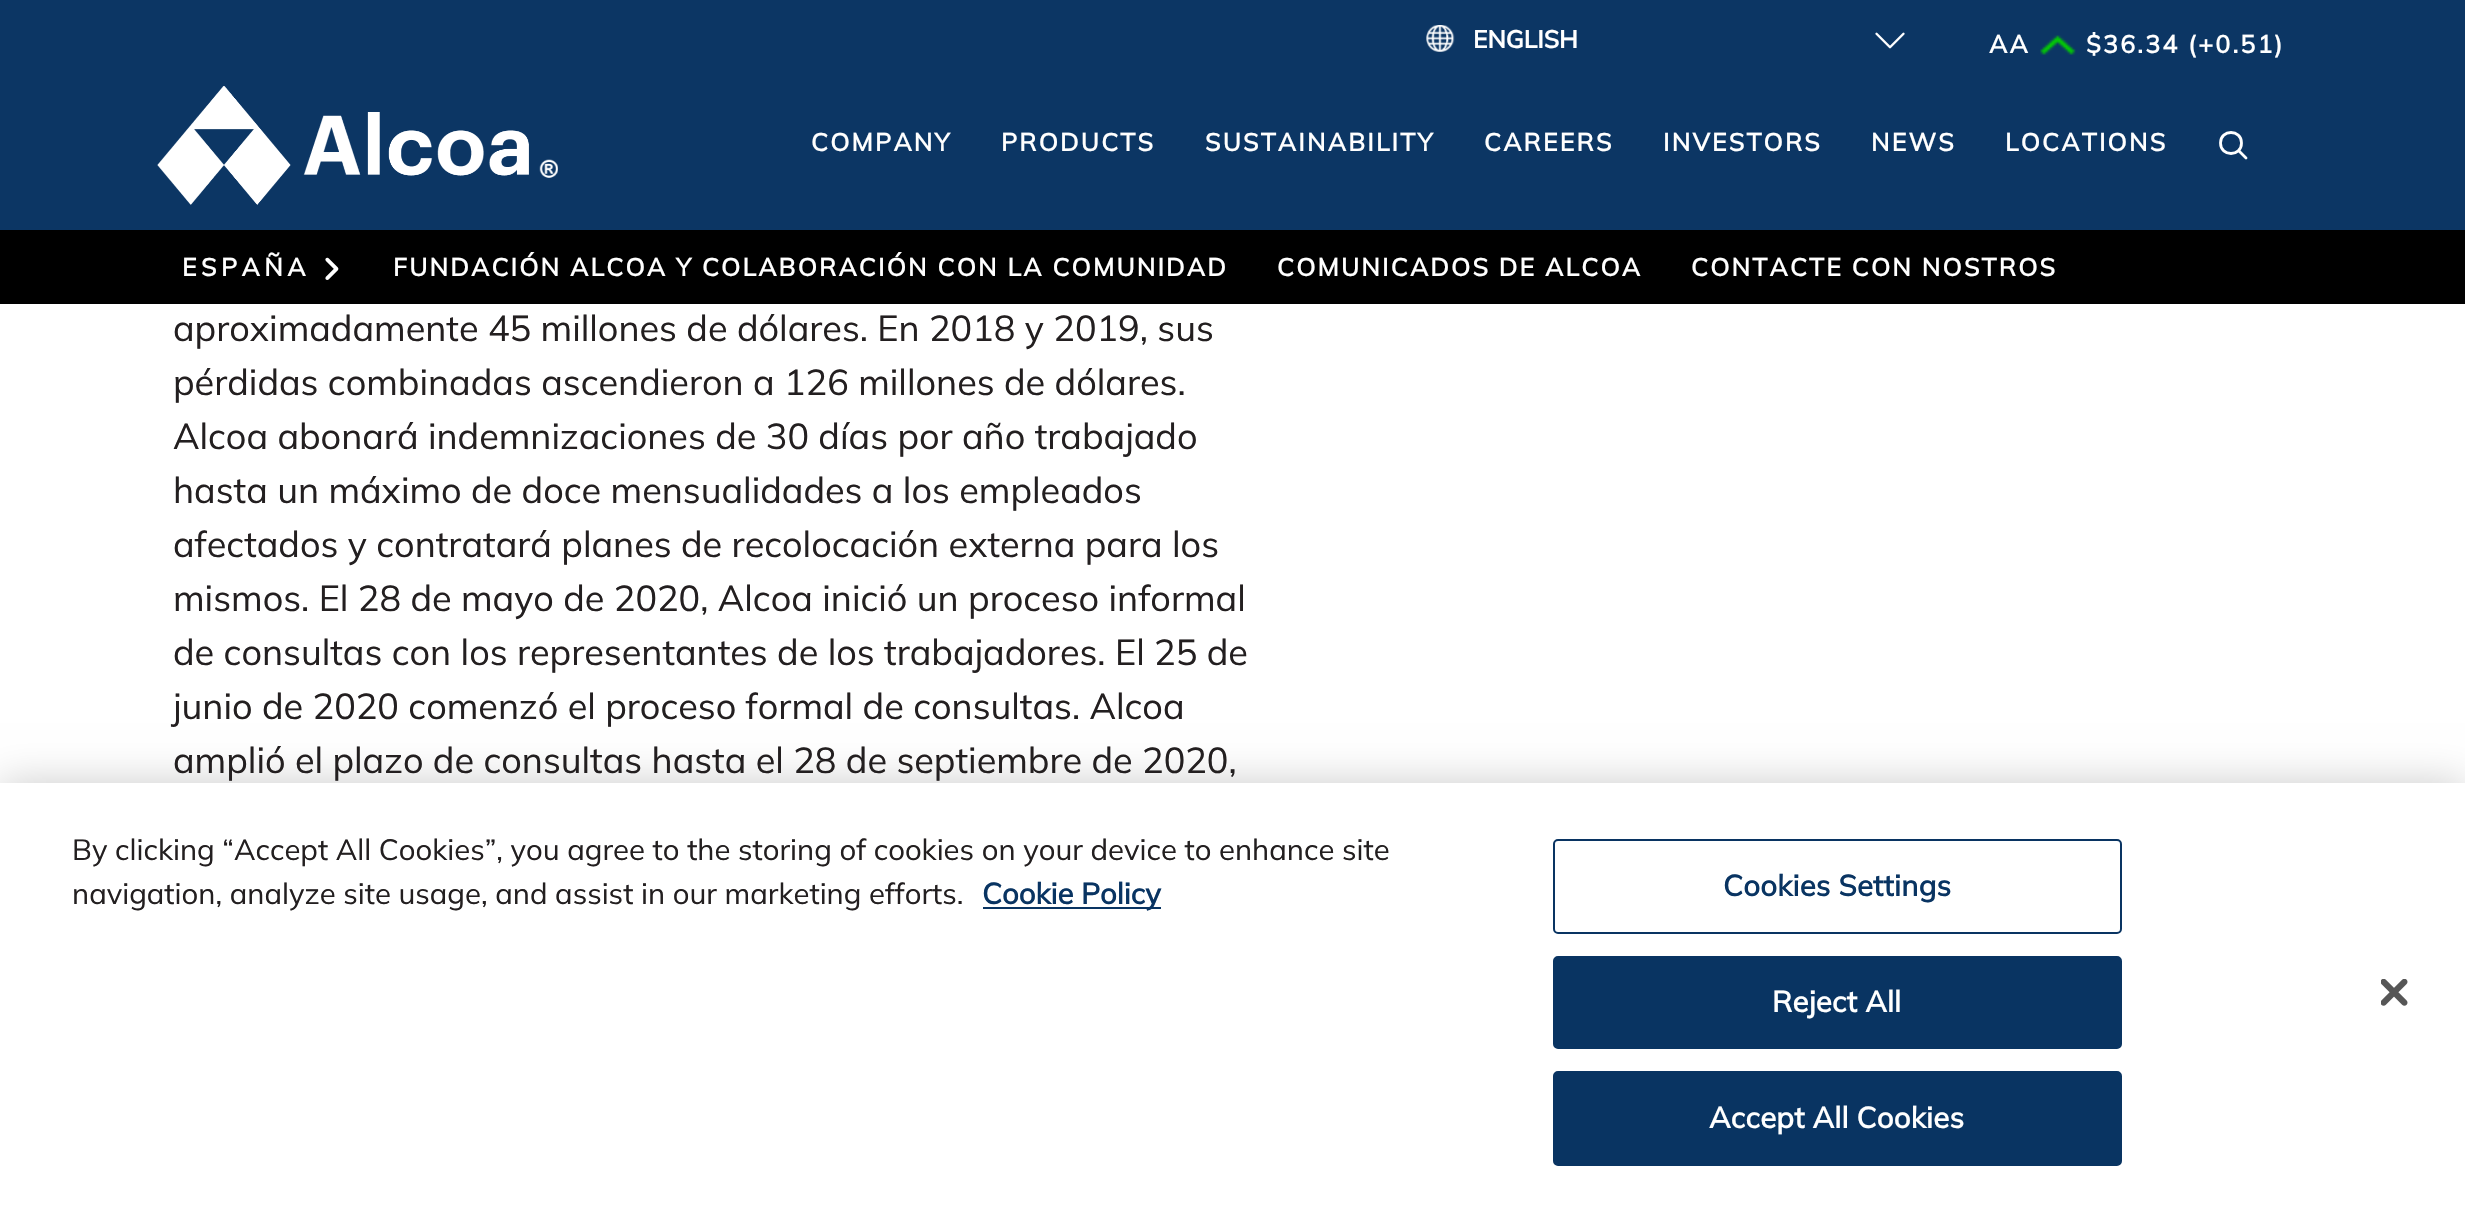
#include "include/core/SkBlurTypes.h"
#include "include/core/SkCanvas.h"
#include "include/core/SkData.h"
#include "include/core/SkFont.h"
#include "include/core/SkFontMgr.h"
#include "include/core/SkImage.h"
#include "include/core/SkMaskFilter.h"
#include "include/core/SkPaint.h"
#include "include/core/SkPathBuilder.h"
#include "include/core/SkTextBlob.h"
#include "include/effects/SkDashPathEffect.h"
#include "include/effects/SkGradientShader.h"
#include "include/utils/SkParsePath.h"

extern sk_sp<SkFontMgr> fontMgr;

void draw(SkCanvas* canvas) {
  SkPaint p;
  p.setAntiAlias(true);
  auto spacedText = [&](const char* s, float x, float y, const SkFont& font, const SkPaint& ink, float letter, float word) {
    std::vector<SkGlyphID> glyphs(font.countText(s, strlen(s), SkTextEncoding::kUTF8));
    std::vector<float> xs(glyphs.size());
    font.textToGlyphs(s, strlen(s), SkTextEncoding::kUTF8, glyphs);
    font.getXPos(glyphs, xs, x);
    float extra = 0;
    for (size_t i = 0; i < glyphs.size(); i++) {
      xs[i] += extra;
      extra += letter + word * (glyphs[i] == font.unicharToGlyph(' '));
    }
    canvas->drawTextBlob(SkTextBlob::MakeFromPosHGlyphs(glyphs, xs, y, font), 0, 0, ink);
  };
  canvas->clear(SK_ColorWHITE);
  p.setColor(SkColorSetRGB(12, 54, 100));
  canvas->drawRect(SkRect::MakeLTRB(0, 0, 2465, 230), p);
  canvas->drawImageRect(SkImages::DeferredFromEncodedData(SkData::MakeFromFileName("images/1.png")), SkRect::MakeLTRB(1426, 25, 1455, 52), SkSamplingOptions());
  canvas->drawImageRect(SkImages::DeferredFromEncodedData(SkData::MakeFromFileName("images/2.png")), SkRect::MakeLTRB(1875, 32, 1905, 49), SkSamplingOptions());
  canvas->drawImageRect(SkImages::DeferredFromEncodedData(SkData::MakeFromFileName("images/3.png")), SkRect::MakeLTRB(2040, 35, 2076, 55), SkSamplingOptions());
  canvas->drawImageRect(SkImages::DeferredFromEncodedData(SkData::MakeFromFileName("images/4.png")), SkRect::MakeLTRB(157, 86, 529, 205), SkSamplingOptions());
  canvas->drawImageRect(SkImages::DeferredFromEncodedData(SkData::MakeFromFileName("images/5.png")), SkRect::MakeLTRB(539, 159, 558, 178), SkSamplingOptions());
  p.setStyle(SkPaint::kStroke_Style);
  p.setStrokeWidth(2.8f);
  p.setStrokeCap(SkPaint::kRound_Cap);
  p.setStrokeJoin(SkPaint::kRound_Join);
  p.setColor(SK_ColorWHITE);
  canvas->drawPath(SkPathBuilder().moveTo(2238.5f, 150.5f).lineTo(2246, 158).moveTo(2241.5f, 143).cubicTo(2241.5f, 157, 2220.5f, 157, 2220.5f, 143).cubicTo(2220.5f, 129, 2241.5f, 129, 2241.5f, 143).close().detach(), p);
  p.setStyle(SkPaint::kFill_Style);
  p.setColor(SK_ColorBLACK);
  canvas->drawRect(SkRect::MakeLTRB(0, 230, 2465, 304), p);
  canvas->drawImageRect(SkImages::DeferredFromEncodedData(SkData::MakeFromFileName("images/6.png")), SkRect::MakeLTRB(325, 257, 339, 280), SkSamplingOptions());
  p.setColor(SkColorSetARGB(51, 0, 0, 0));
  p.setMaskFilter(SkMaskFilter::MakeBlur(kNormal_SkBlurStyle, 20));
  canvas->drawRect(SkRect::MakeLTRB(0, 783, 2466, 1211), p);
  p.setMaskFilter(nullptr);
  p.setColor(SK_ColorWHITE);
  canvas->drawRect(SkRect::MakeLTRB(0, 783, 2465, 1210), p);
  p.setColor(SkColorSetRGB(9, 52, 98));
  canvas->drawRect(SkRect::MakeLTRB(983, 907, 1161, 909), p);
  p.setStyle(SkPaint::kStroke_Style);
  p.setStrokeWidth(2);
  p.setStrokeCap(SkPaint::kButt_Cap);
  p.setStrokeJoin(SkPaint::kMiter_Join);
  canvas->drawRoundRect(SkRect::MakeLTRB(1554, 840, 2121, 933), 4, 4, p);
  p.setStyle(SkPaint::kFill_Style);
  canvas->drawRoundRect(SkRect::MakeLTRB(1554, 957, 2121, 1048), 4, 4, p);
  p.setStyle(SkPaint::kStroke_Style);
  canvas->drawRoundRect(SkRect::MakeLTRB(1554, 957, 2121, 1048), 4, 4, p);
  p.setStyle(SkPaint::kFill_Style);
  canvas->drawRoundRect(SkRect::MakeLTRB(1554, 1072, 2121, 1165), 4, 4, p);
  p.setStyle(SkPaint::kStroke_Style);
  canvas->drawRoundRect(SkRect::MakeLTRB(1554, 1072, 2121, 1165), 4, 4, p);
  canvas->drawImageRect(SkImages::DeferredFromEncodedData(SkData::MakeFromFileName("images/7.png")), SkRect::MakeLTRB(2381, 979, 2408, 1006), SkSamplingOptions());
  SkFont font1(fontMgr->matchFamilyStyle("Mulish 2", SkFontStyle::Bold()), 24.5f);
  font1.setSubpixel(true);
  p.setStyle(SkPaint::kFill_Style);
  p.setColor(SK_ColorWHITE);
  canvas->drawString("ENGLISH", 1473, 48, font1, p);
  SkFont font2(fontMgr->matchFamilyStyle("Mulish", SkFontStyle::Bold()), 24.75f);
  font2.setSubpixel(true);
  spacedText("AA", 1989, 53, font2, p, 2.25f, 0);
  spacedText("$36.34 (+0.51)", 2086, 53, font2, p, 2.25f, 0);
  spacedText("COMPANY", 811, 151, font2, p, 2.25f, 0);
  spacedText("PRODUCTS", 1001, 151, font2, p, 2.25f, 0);
  spacedText("SUSTAINABILITY", 1205, 151, font2, p, 2.25f, 0);
  spacedText("CAREERS", 1484, 151, font2, p, 2.25f, 0);
  spacedText("INVESTORS", 1663, 151, font2, p, 2.25f, 0);
  spacedText("NEWS", 1871, 151, font2, p, 2.25f, 0);
  spacedText("LOCATIONS", 2005, 151, font2, p, 2.25f, 0);
  spacedText("ESPAÑA", 182, 276, font2, p, 4.5f, 0);
  spacedText("FUNDACIÓN ALCOA Y COLABORACIÓN CON LA COMUNIDAD", 393, 276, font2, p, 2.25f, 0);
  spacedText("COMUNICADOS DE ALCOA", 1277, 276, font2, p, 2.25f, 0);
  spacedText("CONTACTE CON NOSTROS", 1691, 276, font2, p, 2.25f, 0);
  SkFont font3(fontMgr->matchFamilyStyle("Mulish", SkFontStyle::Normal()), 36);
  font3.setSubpixel(true);
  p.setColor(SkColorSetRGB(35, 31, 32));
  canvas->drawString("aproximadamente 45 millones de dólares. En 2018 y 2019, sus", 173, 341, font3, p);
  canvas->drawString("pérdidas combinadas ascendieron a 126 millones de dólares.", 173, 395, font3, p);
  canvas->drawString("Alcoa abonará indemnizaciones de 30 días por año trabajado", 173, 449, font3, p);
  canvas->drawString("hasta un máximo de doce mensualidades a los empleados", 173, 503, font3, p);
  canvas->drawString("afectados y contratará planes de recolocación externa para los", 173, 557, font3, p);
  canvas->drawString("mismos. El 28 de mayo de 2020, Alcoa inició un proceso informal", 173, 611, font3, p);
  canvas->drawString("de consultas con los representantes de los trabajadores. El 25 de", 173, 665, font3, p);
  canvas->drawString("junio de 2020 comenzó el proceso formal de consultas. Alcoa", 173, 719, font3, p);
  canvas->drawString("amplió el plazo de consultas hasta el 28 de septiembre de 2020,", 173, 773, font3, p);
  SkFont font4(fontMgr->matchFamilyStyle("Mulish", SkFontStyle::Normal()), 29.25f);
  font4.setSubpixel(true);
  canvas->drawString("By clicking “Accept All Cookies”, you agree to the storing of cookies on your device to enhance site", 72, 860, font4, p);
  canvas->drawString("navigation, analyze site usage, and assist in our marketing efforts.", 72, 904, font4, p);
  SkFont font5(fontMgr->matchFamilyStyle("Mulish", SkFontStyle::Bold()), 29.25f);
  font5.setSubpixel(true);
  p.setColor(SkColorSetRGB(9, 52, 98));
  canvas->drawString("Cookie Policy", 982, 904, font5, p);
  spacedText("Cookies Settings", 1723, 896, font5, p, 0.25f, 0);
  p.setColor(SK_ColorWHITE);
  spacedText("Reject All", 1772, 1012, font5, p, 0.25f, 0);
  spacedText("Accept All Cookies", 1709, 1128, font5, p, 0.25f, 0);
}
